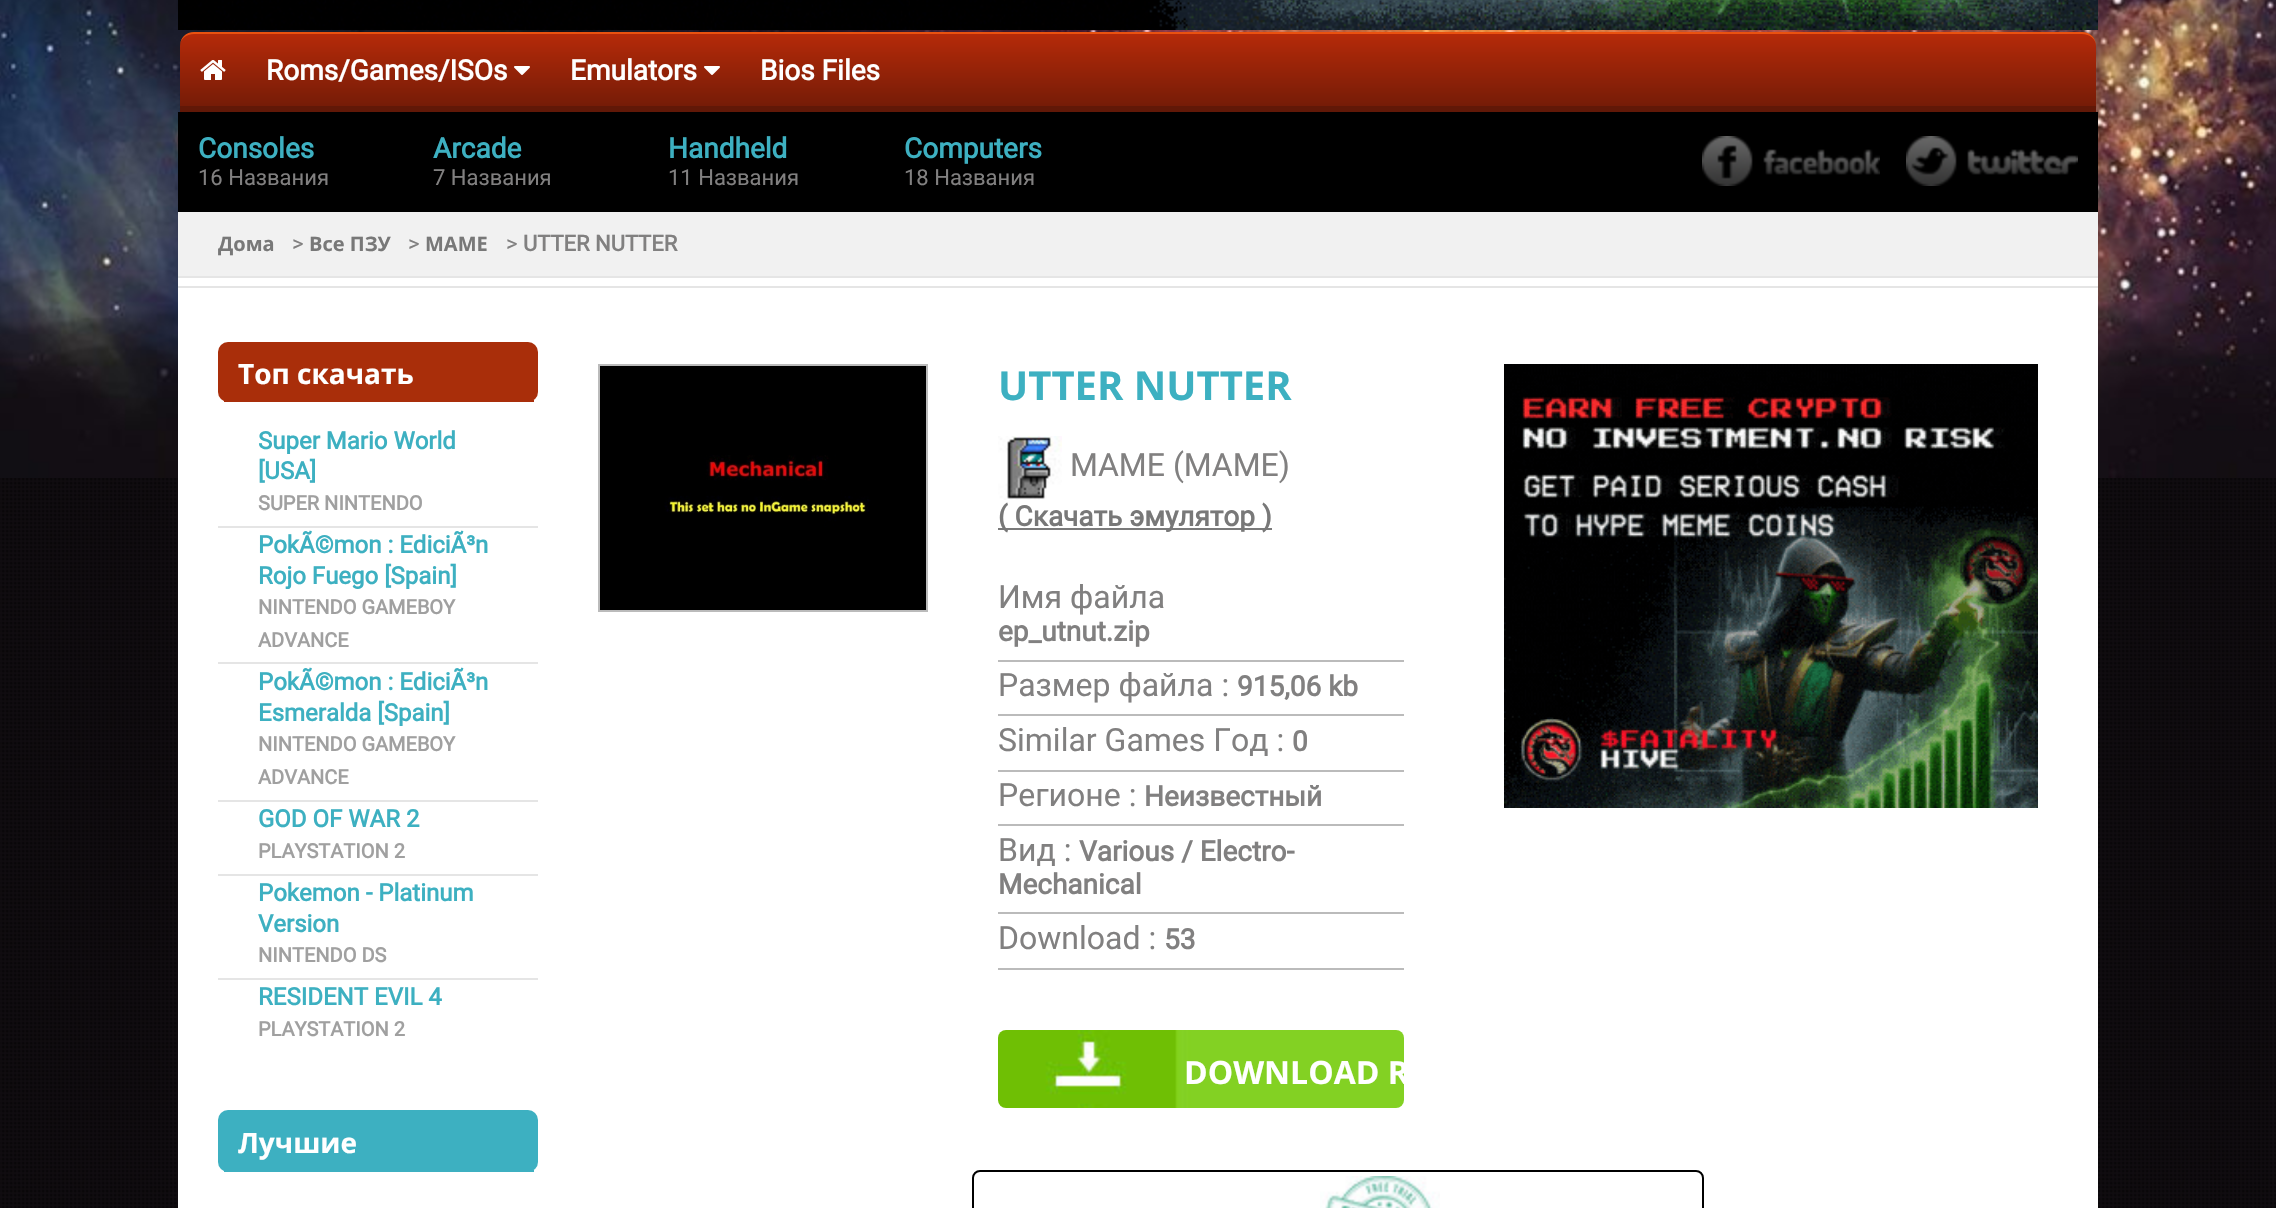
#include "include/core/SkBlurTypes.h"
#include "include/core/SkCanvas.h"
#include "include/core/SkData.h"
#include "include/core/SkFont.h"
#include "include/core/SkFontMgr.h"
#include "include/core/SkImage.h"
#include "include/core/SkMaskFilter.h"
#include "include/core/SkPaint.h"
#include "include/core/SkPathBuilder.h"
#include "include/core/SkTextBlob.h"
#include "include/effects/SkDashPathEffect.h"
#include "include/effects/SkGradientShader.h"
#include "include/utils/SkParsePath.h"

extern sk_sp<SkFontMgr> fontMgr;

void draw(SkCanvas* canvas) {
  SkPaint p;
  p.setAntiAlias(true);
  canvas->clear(SK_ColorWHITE);
  canvas->drawImageRect(SkImages::DeferredFromEncodedData(SkData::MakeFromFileName("images/1.png")), SkRect::MakeLTRB(0, 478, 2276, 1208), SkSamplingOptions());
  canvas->drawImageRect(SkImages::DeferredFromEncodedData(SkData::MakeFromFileName("images/2.png")), SkRect::MakeLTRB(0, 0, 2276, 478), SkSamplingOptions());
  canvas->drawImageRect(SkImages::DeferredFromEncodedData(SkData::MakeFromFileName("images/3.png")), SkRect::MakeLTRB(178, 0, 2098, 30), SkSamplingOptions());
  canvas->save();
  canvas->clipPath(SkPathBuilder().moveTo(194, 32).lineTo(2082, 32).cubicTo(2089.5f, 32, 2096, 38.5f, 2096, 46).lineTo(2096, 112).lineTo(180, 112).lineTo(180, 46).cubicTo(180, 38.5f, 186.5f, 32, 194, 32).close().detach(), true);
  {
    const SkColor colors[] = {SkColorSetRGB(181, 42, 9), SkColorSetRGB(118, 28, 7)};
    const float stops[] = {0, 1};
    const SkPoint ends[] = {{1138, 34}, {1138, 106}};
    p.setShader(SkGradientShader::MakeLinear(ends, colors, stops, 2, SkTileMode::kClamp));
    p.setAlpha(255);
  }
  canvas->drawRect(SkRect::MakeLTRB(180, 34, 2096, 106), p);
  canvas->restore();
  p.setShader(nullptr);
  p.setColor(SkColorSetRGB(234, 82, 16));
  canvas->drawPath(SkPathBuilder().moveTo(194, 32).cubicTo(186, 32, 180, 38, 180, 46).cubicTo(180, 39, 186, 34, 194, 34).lineTo(2082, 34).cubicTo(2090, 34, 2096, 39, 2096, 46).cubicTo(2096, 38, 2090, 32, 2082, 32).close().detach(), p);
  p.setColor(SkColorSetRGB(97, 24, 7));
  canvas->drawRect(SkRect::MakeLTRB(180, 106, 2096, 112), p);
  canvas->drawImageRect(SkImages::DeferredFromEncodedData(SkData::MakeFromFileName("images/4.png")), SkRect::MakeLTRB(200, 60, 226, 80), SkSamplingOptions());
  canvas->drawImageRect(SkImages::DeferredFromEncodedData(SkData::MakeFromFileName("images/5.png")), SkRect::MakeLTRB(514, 66, 530, 75), SkSamplingOptions());
  canvas->drawImageRect(SkImages::DeferredFromEncodedData(SkData::MakeFromFileName("images/5.png")), SkRect::MakeLTRB(704, 66, 720, 75), SkSamplingOptions());
  p.setColor(SK_ColorBLACK);
  canvas->drawRect(SkRect::MakeLTRB(178, 112, 2098, 212), p);
  canvas->drawImageRect(SkImages::DeferredFromEncodedData(SkData::MakeFromFileName("images/6.png")), SkRect::MakeLTRB(1702, 136, 1880, 186), SkSamplingOptions());
  canvas->drawImageRect(SkImages::DeferredFromEncodedData(SkData::MakeFromFileName("images/7.png")), SkRect::MakeLTRB(1906, 136, 2078, 186), SkSamplingOptions());
  p.setColor(SK_ColorWHITE);
  canvas->drawRect(SkRect::MakeLTRB(178, 278, 2098, 1208), p);
  p.setColor(SkColorSetRGB(229, 229, 229));
  canvas->drawRect(SkRect::MakeLTRB(178, 286, 2098, 288), p);
  p.setColor(SkColorSetRGB(241, 241, 241));
  canvas->drawRect(SkRect::MakeLTRB(178, 212, 2098, 276), p);
  p.setColor(SkColorSetRGB(229, 229, 229));
  canvas->drawRect(SkRect::MakeLTRB(178, 276, 2098, 278), p);
  p.setColor(SkColorSetRGB(169, 46, 10));
  canvas->drawRoundRect(SkRect::MakeLTRB(218, 342, 538, 402), 10, 10, p);
  canvas->drawRect(SkRect::MakeLTRB(224, 400, 534, 402), p);
  p.setColor(SkColorSetRGB(229, 229, 229));
  canvas->drawRect(SkRect::MakeLTRB(218, 526, 538, 528), p);
  canvas->drawRect(SkRect::MakeLTRB(218, 662, 538, 664), p);
  canvas->drawRect(SkRect::MakeLTRB(218, 800, 538, 802), p);
  canvas->drawRect(SkRect::MakeLTRB(218, 874, 538, 876), p);
  canvas->drawRect(SkRect::MakeLTRB(218, 978, 538, 980), p);
  p.setColor(SkColorSetRGB(61, 176, 193));
  canvas->drawRoundRect(SkRect::MakeLTRB(218, 1110, 538, 1172), 10, 10, p);
  canvas->drawRect(SkRect::MakeLTRB(224, 1170, 534, 1172), p);
  p.setStyle(SkPaint::kStroke_Style);
  p.setStrokeWidth(2);
  p.setColor(SkColorSetRGB(187, 187, 187));
  canvas->drawRect(SkRect::MakeLTRB(599, 365, 927, 611), p);
  canvas->drawImageRect(SkImages::DeferredFromEncodedData(SkData::MakeFromFileName("images/8.png")), SkRect::MakeLTRB(600, 366, 926, 610), SkSamplingOptions());
  canvas->drawImageRect(SkImages::DeferredFromEncodedData(SkData::MakeFromFileName("images/9.png")), SkRect::MakeLTRB(998, 436, 1062, 500), SkSamplingOptions());
  p.setStyle(SkPaint::kFill_Style);
  p.setColor(SkColorSetRGB(122, 122, 122));
  canvas->drawRect(SkRect::MakeLTRB(998, 528, 1272, 530), p);
  p.setColor(SkColorSetRGB(187, 187, 187));
  canvas->drawRect(SkRect::MakeLTRB(998, 660, 1404, 662), p);
  canvas->drawRect(SkRect::MakeLTRB(998, 714, 1404, 716), p);
  canvas->drawRect(SkRect::MakeLTRB(998, 770, 1404, 772), p);
  canvas->drawRect(SkRect::MakeLTRB(998, 824, 1404, 826), p);
  canvas->drawRect(SkRect::MakeLTRB(998, 912, 1404, 914), p);
  canvas->drawRect(SkRect::MakeLTRB(998, 968, 1404, 970), p);
  canvas->drawImageRect(SkImages::DeferredFromEncodedData(SkData::MakeFromFileName("images/10.png")), SkRect::MakeLTRB(998, 1030, 1404, 1108), SkSamplingOptions());
  canvas->drawImageRect(SkImages::DeferredFromEncodedData(SkData::MakeFromFileName("images/11.png")), SkRect::MakeLTRB(1504, 364, 2038, 808), SkSamplingOptions());
  p.setStyle(SkPaint::kStroke_Style);
  p.setColor(SK_ColorBLACK);
  canvas->drawRoundRect(SkRect::MakeLTRB(973, 1171, 1703, 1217), 7, 7, p);
  canvas->drawImageRect(SkImages::DeferredFromEncodedData(SkData::MakeFromFileName("images/12.png")), SkRect::MakeLTRB(1320, 1176, 1440, 1208), SkSamplingOptions());
  SkFont font1(fontMgr->matchFamilyStyle("Roboto", SkFontStyle::Bold()), 28);
  font1.setSubpixel(true);
  p.setStyle(SkPaint::kFill_Style);
  p.setColor(SK_ColorWHITE);
  canvas->drawString("Roms/Games/ISOs", 266, 80, font1, p);
  canvas->drawString("Emulators", 570, 80, font1, p);
  canvas->drawString("Bios Files", 760, 80, font1, p);
  p.setColor(SkColorSetRGB(61, 176, 193));
  canvas->drawString("Consoles", 198, 158, font1, p);
  SkFont font2(fontMgr->matchFamilyStyle("Roboto", SkFontStyle::Normal()), 22);
  font2.setSubpixel(true);
  p.setColor(SkColorSetRGB(129, 128, 128));
  canvas->drawString("16 Названия", 198, 185, font2, p);
  p.setColor(SkColorSetRGB(61, 176, 193));
  canvas->drawString("Arcade", 433, 158, font1, p);
  p.setColor(SkColorSetRGB(129, 128, 128));
  canvas->drawString("7 Названия", 433, 185, font2, p);
  p.setColor(SkColorSetRGB(61, 176, 193));
  canvas->drawString("Handheld", 668, 158, font1, p);
  p.setColor(SkColorSetRGB(129, 128, 128));
  canvas->drawString("11 Названия", 668, 185, font2, p);
  p.setColor(SkColorSetRGB(61, 176, 193));
  canvas->drawString("Computers", 904, 158, font1, p);
  p.setColor(SkColorSetRGB(129, 128, 128));
  canvas->drawString("18 Названия", 904, 185, font2, p);
  SkFont font3(fontMgr->matchFamilyStyle("Open Sans", SkFontStyle::Bold()), 20);
  font3.setSubpixel(true);
  p.setColor(SkColorSetRGB(120, 120, 120));
  canvas->drawString("Дома", 218, 251, font3, p);
  p.setColor(SkColorSetRGB(129, 128, 128));
  canvas->drawString(">", 292, 251, font2, p);
  p.setColor(SkColorSetRGB(120, 120, 120));
  canvas->drawString("Все ПЗУ", 309, 251, font3, p);
  p.setColor(SkColorSetRGB(129, 128, 128));
  canvas->drawString(">", 408, 251, font2, p);
  p.setColor(SkColorSetRGB(120, 120, 120));
  canvas->drawString("MAME", 425, 251, font3, p);
  p.setColor(SkColorSetRGB(129, 128, 128));
  canvas->drawString(">", 506, 251, font2, p);
  SkFont font4(fontMgr->matchFamilyStyle("Roboto", SkFontStyle::Bold()), 22);
  font4.setSubpixel(true);
  canvas->drawString("UTTER NUTTER", 523, 251, font4, p);
  SkFont font5(fontMgr->matchFamilyStyle("Open Sans", SkFontStyle::Bold()), 28);
  font5.setSubpixel(true);
  p.setColor(SK_ColorWHITE);
  canvas->drawString("Топ скачать", 238, 384, font5, p);
  SkFont font6(fontMgr->matchFamilyStyle("Roboto", SkFontStyle::Bold()), 24);
  font6.setSubpixel(true);
  p.setColor(SkColorSetRGB(61, 176, 193));
  canvas->drawString("Super Mario World", 258, 449, font6, p);
  canvas->drawString("[USA]", 258, 479, font6, p);
  SkFont font7(fontMgr->matchFamilyStyle("Roboto", SkFontStyle::Bold()), 20);
  font7.setSubpixel(true);
  p.setColor(SkColorSetRGB(160, 160, 160));
  canvas->drawString("SUPER NINTENDO", 258, 510, font7, p);
  p.setColor(SkColorSetRGB(61, 176, 193));
  canvas->drawString("PokÃ©mon : EdiciÃ³n", 258, 553, font6, p);
  canvas->drawString("Rojo Fuego [Spain]", 258, 584, font6, p);
  p.setColor(SkColorSetRGB(160, 160, 160));
  canvas->drawString("NINTENDO GAMEBOY", 258, 614, font7, p);
  canvas->drawString("ADVANCE", 258, 647, font7, p);
  p.setColor(SkColorSetRGB(61, 176, 193));
  canvas->drawString("PokÃ©mon : EdiciÃ³n", 258, 690, font6, p);
  canvas->drawString("Esmeralda [Spain]", 258, 721, font6, p);
  p.setColor(SkColorSetRGB(160, 160, 160));
  canvas->drawString("NINTENDO GAMEBOY", 258, 751, font7, p);
  canvas->drawString("ADVANCE", 258, 784, font7, p);
  p.setColor(SkColorSetRGB(61, 176, 193));
  canvas->drawString("GOD OF WAR 2", 258, 827, font6, p);
  p.setColor(SkColorSetRGB(160, 160, 160));
  canvas->drawString("PLAYSTATION 2", 258, 858, font7, p);
  p.setColor(SkColorSetRGB(61, 176, 193));
  canvas->drawString("Pokemon - Platinum", 258, 901, font6, p);
  canvas->drawString("Version", 258, 932, font6, p);
  p.setColor(SkColorSetRGB(160, 160, 160));
  canvas->drawString("NINTENDO DS", 258, 962, font7, p);
  p.setColor(SkColorSetRGB(61, 176, 193));
  canvas->drawString("RESIDENT EVIL 4", 258, 1005, font6, p);
  p.setColor(SkColorSetRGB(160, 160, 160));
  canvas->drawString("PLAYSTATION 2", 258, 1036, font7, p);
  p.setColor(SK_ColorWHITE);
  canvas->drawString("Лучшие", 238, 1153, font5, p);
  SkFont font8(fontMgr->matchFamilyStyle("Open Sans", SkFontStyle::Bold()), 40);
  font8.setSubpixel(true);
  p.setColor(SkColorSetRGB(61, 176, 193));
  canvas->drawString("UTTER NUTTER", 998, 400, font8, p);
  SkFont font9(fontMgr->matchFamilyStyle("Roboto", SkFontStyle::Normal()), 32);
  font9.setSubpixel(true);
  p.setColor(SkColorSetRGB(129, 128, 128));
  canvas->drawString("MAME (MAME)", 1070, 476, font9, p);
  p.setColor(SkColorSetRGB(120, 120, 120));
  canvas->drawString("( Скачать эмулятор )", 998, 526, font1, p);
  p.setColor(SkColorSetRGB(129, 128, 128));
  canvas->drawString("Имя файла", 998, 608, font9, p);
  canvas->drawString("ep_utnut.zip", 998, 641, font1, p);
  canvas->drawString("Размер файла :", 998, 696, font9, p);
  canvas->drawString("915,06 kb", 1237, 696, font1, p);
  canvas->drawString("Similar Games Год :", 998, 751, font9, p);
  canvas->drawString("0", 1292, 751, font1, p);
  canvas->drawString("Регионе :", 998, 806, font9, p);
  canvas->drawString("Неизвестный", 1144, 806, font1, p);
  canvas->drawString("Вид :", 998, 861, font9, p);
  canvas->drawString("Various / Electro-", 1079, 861, font1, p);
  canvas->drawString("Mechanical", 998, 894, font1, p);
  canvas->drawString("Download :", 998, 949, font9, p);
  canvas->drawString("53", 1164, 949, font1, p);
  SkFont font10(fontMgr->matchFamilyStyle("Open Sans", SkFontStyle::Bold()), 32);
  font10.setSubpixel(true);
  p.setColor(SK_ColorWHITE);
  canvas->drawString("DOWNLOAD R", 1184, 1084, font10, p);
}
